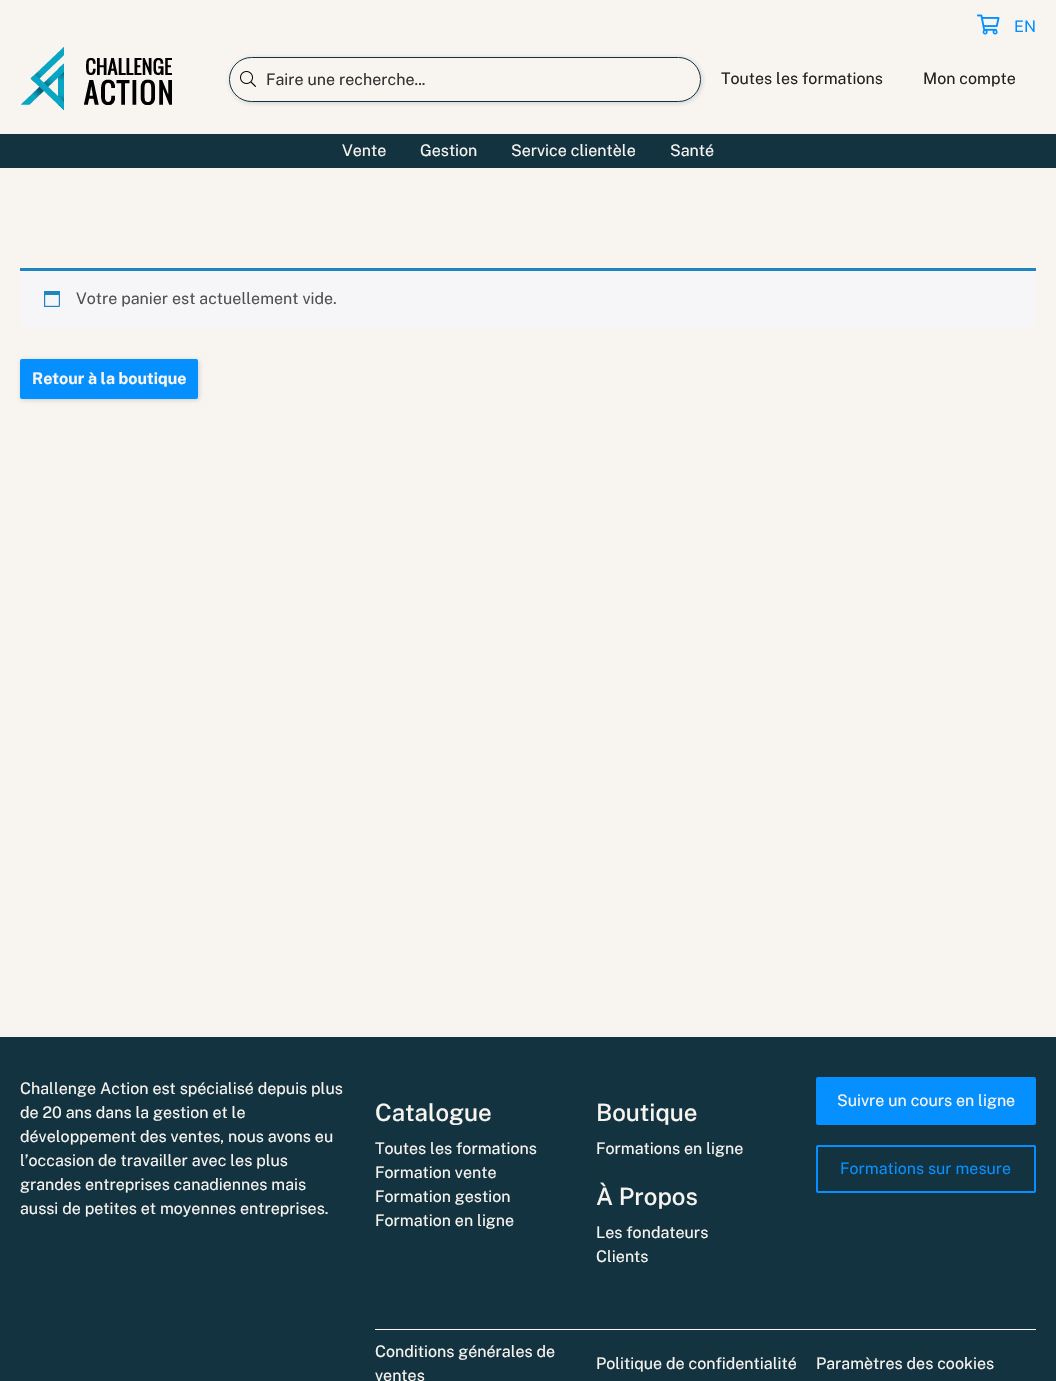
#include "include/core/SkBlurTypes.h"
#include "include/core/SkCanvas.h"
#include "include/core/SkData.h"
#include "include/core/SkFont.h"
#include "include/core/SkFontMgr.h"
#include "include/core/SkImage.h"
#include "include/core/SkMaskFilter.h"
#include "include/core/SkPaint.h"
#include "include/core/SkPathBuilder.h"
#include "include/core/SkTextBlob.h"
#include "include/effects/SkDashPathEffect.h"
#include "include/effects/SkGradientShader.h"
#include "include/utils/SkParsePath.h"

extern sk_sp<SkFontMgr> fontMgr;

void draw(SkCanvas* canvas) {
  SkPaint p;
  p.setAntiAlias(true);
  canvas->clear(SkColorSetRGB(248, 245, 241));
  canvas->drawImageRect(SkImages::DeferredFromEncodedData(SkData::MakeFromFileName("images/1.png")), SkRect::MakeLTRB(977, 14, 1000, 35), SkSamplingOptions());
  canvas->drawImageRect(SkImages::DeferredFromEncodedData(SkData::MakeFromFileName("images/2.png")), SkRect::MakeLTRB(21, 47, 172, 110), SkSamplingOptions());
  p.setColor(SkColorSetARGB(51, 20, 51, 64));
  p.setMaskFilter(SkMaskFilter::MakeBlur(kNormal_SkBlurStyle, 2.5f));
  canvas->drawRoundRect(SkRect::MakeLTRB(230, 58, 702, 103), 22.5f, 22.5f, p);
  p.setMaskFilter(nullptr);
  p.setColor(SkColorSetRGB(248, 245, 241));
  canvas->drawRoundRect(SkRect::MakeLTRB(229.5f, 57.5f, 700.5f, 101.5f), 22, 22, p);
  p.setStyle(SkPaint::kStroke_Style);
  p.setStrokeWidth(1);
  p.setColor(SkColorSetRGB(20, 51, 64));
  canvas->drawRoundRect(SkRect::MakeLTRB(229.5f, 57.5f, 700.5f, 101.5f), 22, 22, p);
  canvas->drawImageRect(SkImages::DeferredFromEncodedData(SkData::MakeFromFileName("images/3.png")), SkRect::MakeLTRB(240, 71, 256, 87), SkSamplingOptions());
  p.setStyle(SkPaint::kFill_Style);
  canvas->drawRect(SkRect::MakeLTRB(0, 134, 1056, 168), p);
  p.setColor(SkColorSetRGB(246, 245, 248));
  canvas->drawRect(SkRect::MakeLTRB(20, 271, 1036, 327), p);
  p.setColor(SkColorSetRGB(30, 133, 190));
  canvas->drawRect(SkRect::MakeLTRB(20, 268, 1036, 271), p);
  canvas->drawImageRect(SkImages::DeferredFromEncodedData(SkData::MakeFromFileName("images/4.png")), SkRect::MakeLTRB(44, 291, 60, 307), SkSamplingOptions());
  p.setColor(SkColorSetARGB(51, 20, 51, 64));
  p.setMaskFilter(SkMaskFilter::MakeBlur(kNormal_SkBlurStyle, 2.5f));
  canvas->drawRoundRect(SkRect::MakeLTRB(21, 360, 199, 400), 2, 2, p);
  p.setMaskFilter(nullptr);
  p.setColor(SkColorSetRGB(6, 143, 255));
  canvas->drawRoundRect(SkRect::MakeLTRB(21, 360, 197, 398), 1, 1, p);
  p.setStyle(SkPaint::kStroke_Style);
  p.setStrokeWidth(2);
  canvas->drawRoundRect(SkRect::MakeLTRB(21, 360, 197, 398), 1, 1, p);
  p.setStyle(SkPaint::kFill_Style);
  p.setColor(SkColorSetRGB(20, 51, 64));
  canvas->drawRect(SkRect::MakeLTRB(0, 1037, 1056, 1381), p);
  p.setColor(SkColorSetRGB(6, 143, 255));
  canvas->drawRoundRect(SkRect::MakeLTRB(817, 1078, 1035, 1124), 1, 1, p);
  p.setStyle(SkPaint::kStroke_Style);
  canvas->drawRoundRect(SkRect::MakeLTRB(817, 1078, 1035, 1124), 1, 1, p);
  canvas->drawRoundRect(SkRect::MakeLTRB(817, 1146, 1035, 1192), 1, 1, p);
  p.setStyle(SkPaint::kFill_Style);
  p.setColor(SkColorSetRGB(248, 245, 241));
  canvas->drawRect(SkRect::MakeLTRB(375, 1329, 1036, 1330), p);
  SkFont font1(fontMgr->matchFamilyStyle("Public Sans", SkFontStyle::Normal()), 16);
  font1.setSubpixel(true);
  p.setColor(SkColorSetRGB(6, 143, 255));
  canvas->drawString("EN", 1014, 32, font1, p);
  p.setColor(SkColorSetRGB(51, 51, 51));
  canvas->drawString("Faire une recherche...", 266, 85, font1, p);
  p.setColor(SkColorSetRGB(34, 34, 34));
  canvas->drawString("Toutes les formations", 721, 84, font1, p);
  canvas->drawString("Mon compte", 923, 84, font1, p);
  p.setColor(SkColorSetRGB(248, 245, 241));
  canvas->drawString("Vente", 342, 156, font1, p);
  canvas->drawString("Gestion", 420, 156, font1, p);
  canvas->drawString("Service clientèle", 511, 156, font1, p);
  canvas->drawString("Santé", 670, 156, font1, p);
  p.setColor(SkColorSetRGB(81, 81, 81));
  canvas->drawString("Votre panier est actuellement vide.", 76, 304, font1, p);
  SkFont font2(fontMgr->matchFamilyStyle("Public Sans", SkFontStyle::Bold()), 16);
  font2.setSubpixel(true);
  p.setColor(SkColorSetRGB(248, 245, 241));
  canvas->drawString("Retour à la boutique", 32, 384, font2, p);
  canvas->drawString("Challenge Action est spécialisé depuis plus", 20, 1094, font1, p);
  canvas->drawString("de 20 ans dans la gestion et le", 20, 1118, font1, p);
  canvas->drawString("développement des ventes, nous avons eu", 20, 1142, font1, p);
  canvas->drawString("l’occasion de travailler avec les plus", 20, 1166, font1, p);
  canvas->drawString("grandes entreprises canadiennes mais", 20, 1190, font1, p);
  canvas->drawString("aussi de petites et moyennes entreprises.", 20, 1214, font1, p);
  SkFont font3(fontMgr->matchFamilyStyle("Public Sans", SkFontStyle(500, SkFontStyle::kNormal_Width, SkFontStyle::kUpright_Slant)), 24);
  font3.setSubpixel(true);
  canvas->drawString("Catalogue", 375, 1121, font3, p);
  canvas->drawString("Toutes les formations", 375, 1154, font1, p);
  canvas->drawString("Formation vente", 375, 1178, font1, p);
  canvas->drawString("Formation gestion", 375, 1202, font1, p);
  canvas->drawString("Formation en ligne", 375, 1226, font1, p);
  canvas->drawString("Boutique", 596, 1121, font3, p);
  canvas->drawString("Formations en ligne", 596, 1154, font1, p);
  canvas->drawString("À Propos", 596, 1205, font3, p);
  canvas->drawString("Les fondateurs", 596, 1238, font1, p);
  canvas->drawString("Clients", 596, 1262, font1, p);
  canvas->drawString("Suivre un cours en ligne", 837, 1106, font1, p);
  p.setColor(SkColorSetRGB(6, 143, 255));
  canvas->drawString("Formations sur mesure", 840, 1174, font1, p);
  p.setColor(SkColorSetRGB(248, 245, 241));
  canvas->drawString("Conditions générales de", 375, 1357, font1, p);
  canvas->drawString("ventes", 375, 1381, font1, p);
  canvas->drawString("Politique de confidentialité", 596, 1369, font1, p);
  canvas->drawString("Paramètres des cookies", 816, 1369, font1, p);
}
